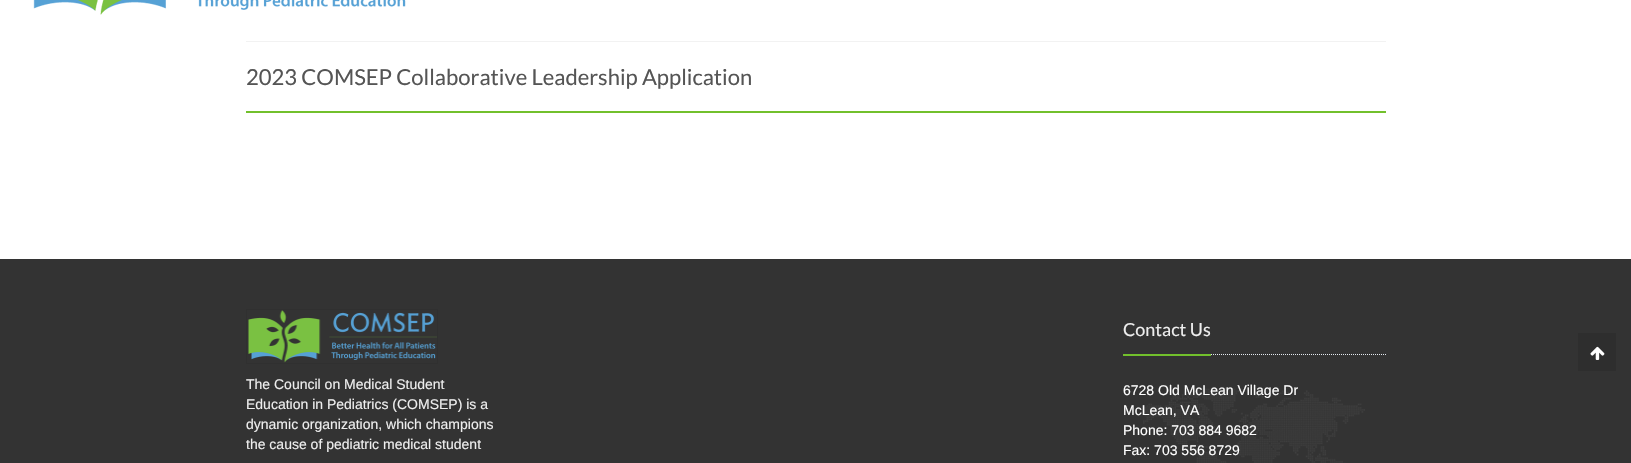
#include "include/core/SkBlurTypes.h"
#include "include/core/SkCanvas.h"
#include "include/core/SkData.h"
#include "include/core/SkFont.h"
#include "include/core/SkFontMgr.h"
#include "include/core/SkImage.h"
#include "include/core/SkMaskFilter.h"
#include "include/core/SkPaint.h"
#include "include/core/SkPathBuilder.h"
#include "include/core/SkTextBlob.h"
#include "include/effects/SkDashPathEffect.h"
#include "include/effects/SkGradientShader.h"
#include "include/utils/SkParsePath.h"

extern sk_sp<SkFontMgr> fontMgr;

void draw(SkCanvas* canvas) {
  SkPaint p;
  p.setAntiAlias(true);
  canvas->clear(SK_ColorWHITE);
  canvas->drawImageRect(SkImages::DeferredFromEncodedData(SkData::MakeFromFileName("images/1.png")), SkRect::MakeLTRB(33, 0, 406, 15), SkSamplingOptions());
  p.setColor(SkColorSetRGB(242, 242, 242));
  canvas->drawRect(SkRect::MakeLTRB(246, 41, 1386, 42), p);
  p.setColor(SkColorSetRGB(114, 192, 44));
  canvas->drawRect(SkRect::MakeLTRB(246, 111, 1386, 113), p);
  p.setColor(SkColorSetRGB(51, 51, 51));
  canvas->drawRect(SkRect::MakeLTRB(0, 259, 1631, 463), p);
  p.setStyle(SkPaint::kStroke_Style);
  p.setStrokeWidth(1);
  p.setColor(SkColorSetRGB(48, 48, 48));
  canvas->drawRect(SkRect::MakeLTRB(246.5f, 309.5f, 437.5f, 363.5f), p);
  canvas->drawImageRect(SkImages::DeferredFromEncodedData(SkData::MakeFromFileName("images/2.png")), SkRect::MakeLTRB(248, 310, 437, 363), SkSamplingOptions());
  canvas->drawImageRect(SkImages::DeferredFromEncodedData(SkData::MakeFromFileName("images/3.png")), SkRect::MakeLTRB(1143, 387, 1365, 463), SkSamplingOptions());
  p.setColor(SkColorSetRGB(228, 233, 240));
  p.setPathEffect(SkDashPathEffect::Make({{1, 1}}, 0));
  canvas->drawPath(SkPathBuilder().moveTo(1123, 354.5f).lineTo(1386, 354.5f).detach(), p);
  p.setPathEffect(nullptr);
  p.setStyle(SkPaint::kFill_Style);
  p.setColor(SkColorSetRGB(114, 192, 44));
  canvas->drawRect(SkRect::MakeLTRB(1123, 354, 1211, 356), p);
  p.setColor(SkColorSetRGB(46, 46, 46));
  canvas->drawRect(SkRect::MakeLTRB(1578, 333, 1616, 371), p);
  canvas->drawImageRect(SkImages::DeferredFromEncodedData(SkData::MakeFromFileName("images/4.png")), SkRect::MakeLTRB(1590, 346, 1605, 360), SkSamplingOptions());
  SkFont font1(fontMgr->matchFamilyStyle("Lato", SkFontStyle::Normal()), 22);
  font1.setSubpixel(true);
  p.setColor(SkColorSetRGB(85, 85, 85));
  canvas->drawString("2023 COMSEP Collaborative Leadership Application", 246, 85, font1, p);
  SkFont font2(fontMgr->matchFamilyStyle("Liberation Sans", SkFontStyle::Normal()), 14);
  font2.setSubpixel(true);
  p.setColor(SkColorSetRGB(238, 238, 238));
  canvas->drawString("The Council on Medical Student", 246, 389, font2, p);
  canvas->drawString("Education in Pediatrics (COMSEP) is a", 246, 409, font2, p);
  canvas->drawString("dynamic organization, which champions", 246, 429, font2, p);
  canvas->drawString("the cause of pediatric medical student", 246, 449, font2, p);
  SkFont font3(fontMgr->matchFamilyStyle("Lato", SkFontStyle::Normal()), 18);
  font3.setSubpixel(true);
  canvas->drawString("Contact Us", 1123, 336, font3, p);
  p.setColor(SK_ColorWHITE);
  canvas->drawString("6728 Old McLean Village Dr", 1123, 395, font2, p);
  canvas->drawString("McLean, VA", 1123, 415, font2, p);
  canvas->drawString("Phone: 703 884 9682", 1123, 435, font2, p);
  canvas->drawString("Fax: 703 556 8729", 1123, 455, font2, p);
}
